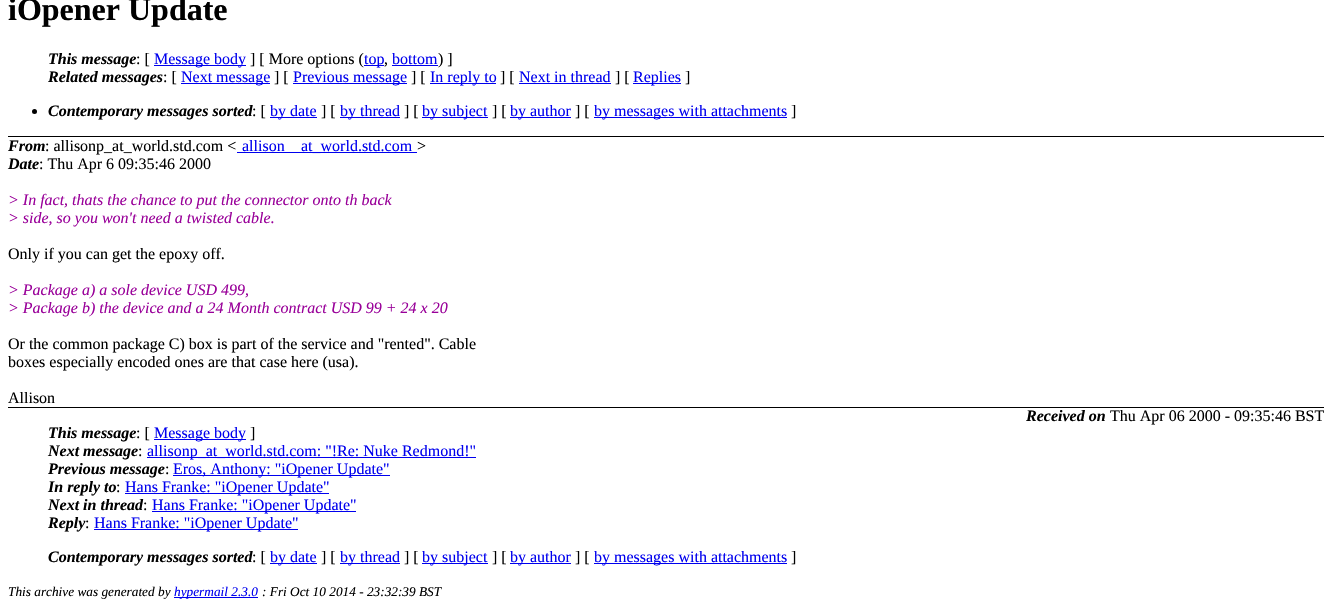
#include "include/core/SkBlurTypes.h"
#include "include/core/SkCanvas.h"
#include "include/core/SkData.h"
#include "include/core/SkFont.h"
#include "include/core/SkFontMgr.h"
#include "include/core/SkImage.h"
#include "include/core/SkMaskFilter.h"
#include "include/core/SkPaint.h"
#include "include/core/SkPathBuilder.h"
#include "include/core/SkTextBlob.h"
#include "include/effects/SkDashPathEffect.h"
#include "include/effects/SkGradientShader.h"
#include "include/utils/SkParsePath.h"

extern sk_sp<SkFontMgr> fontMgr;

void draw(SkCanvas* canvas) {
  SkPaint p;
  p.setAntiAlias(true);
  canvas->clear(SK_ColorWHITE);
  p.setColor(SK_ColorBLACK);
  canvas->drawRect(SkRect::MakeLTRB(8, 136, 1324, 137), p);
  p.setColor(SkColorSetRGB(0, 0, 238));
  canvas->drawRect(SkRect::MakeLTRB(154, 65, 246, 66), p);
  canvas->drawRect(SkRect::MakeLTRB(364, 65, 384, 66), p);
  canvas->drawRect(SkRect::MakeLTRB(392, 65, 438, 66), p);
  canvas->drawRect(SkRect::MakeLTRB(181, 83, 270, 84), p);
  canvas->drawRect(SkRect::MakeLTRB(293, 83, 407, 84), p);
  canvas->drawRect(SkRect::MakeLTRB(430, 83, 496, 84), p);
  canvas->drawRect(SkRect::MakeLTRB(519, 83, 611, 84), p);
  canvas->drawRect(SkRect::MakeLTRB(633, 83, 681, 84), p);
  p.setColor(SK_ColorBLACK);
  canvas->drawCircle(34.5f, 111.5f, 2.5f, p);
  p.setColor(SkColorSetRGB(0, 0, 238));
  canvas->drawRect(SkRect::MakeLTRB(270, 117, 317, 118), p);
  canvas->drawRect(SkRect::MakeLTRB(340, 117, 400, 118), p);
  canvas->drawRect(SkRect::MakeLTRB(422, 117, 488, 118), p);
  canvas->drawRect(SkRect::MakeLTRB(510, 117, 571, 118), p);
  canvas->drawRect(SkRect::MakeLTRB(594, 117, 787, 118), p);
  canvas->drawRect(SkRect::MakeLTRB(237, 152, 417, 153), p);
  p.setColor(SK_ColorBLACK);
  canvas->drawRect(SkRect::MakeLTRB(8, 407, 1324, 408), p);
  p.setColor(SkColorSetRGB(0, 0, 238));
  canvas->drawRect(SkRect::MakeLTRB(154, 439, 246, 440), p);
  canvas->drawRect(SkRect::MakeLTRB(147, 457, 476, 458), p);
  canvas->drawRect(SkRect::MakeLTRB(173, 475, 390, 476), p);
  canvas->drawRect(SkRect::MakeLTRB(125, 493, 329, 494), p);
  canvas->drawRect(SkRect::MakeLTRB(152, 511, 356, 512), p);
  canvas->drawRect(SkRect::MakeLTRB(94, 529, 298, 530), p);
  canvas->drawRect(SkRect::MakeLTRB(270, 563, 317, 564), p);
  canvas->drawRect(SkRect::MakeLTRB(340, 563, 400, 564), p);
  canvas->drawRect(SkRect::MakeLTRB(422, 563, 488, 564), p);
  canvas->drawRect(SkRect::MakeLTRB(510, 563, 571, 564), p);
  canvas->drawRect(SkRect::MakeLTRB(594, 563, 787, 564), p);
  canvas->drawRect(SkRect::MakeLTRB(174, 597, 258, 598), p);
  SkFont font1(fontMgr->matchFamilyStyle("Liberation Serif", SkFontStyle::Bold()), 32);
  font1.setSubpixel(true);
  p.setColor(SK_ColorBLACK);
  canvas->drawString("iOpener Update", 8, 20, font1, p);
  SkFont font2(fontMgr->matchFamilyStyle("Liberation Serif", SkFontStyle::BoldItalic()), 16);
  font2.setSubpixel(true);
  canvas->drawString("This message", 48, 64, font2, p);
  SkFont font3(fontMgr->matchFamilyStyle("Liberation Serif", SkFontStyle::Normal()), 16);
  font3.setSubpixel(true);
  canvas->drawString(": [", 136, 64, font3, p);
  p.setColor(SkColorSetRGB(0, 0, 238));
  canvas->drawString("Message body", 154, 64, font3, p);
  p.setColor(SK_ColorBLACK);
  canvas->drawString("] [ More options (", 250, 64, font3, p);
  p.setColor(SkColorSetRGB(0, 0, 238));
  canvas->drawString("top", 364, 64, font3, p);
  p.setColor(SK_ColorBLACK);
  canvas->drawString(",", 384, 64, font3, p);
  p.setColor(SkColorSetRGB(0, 0, 238));
  canvas->drawString("bottom", 392, 64, font3, p);
  p.setColor(SK_ColorBLACK);
  canvas->drawString(") ]", 438, 64, font3, p);
  canvas->drawString("Related messages", 48, 82, font2, p);
  canvas->drawString(": [", 163, 82, font3, p);
  p.setColor(SkColorSetRGB(0, 0, 238));
  canvas->drawString("Next message", 181, 82, font3, p);
  p.setColor(SK_ColorBLACK);
  canvas->drawString("] [", 274, 82, font3, p);
  p.setColor(SkColorSetRGB(0, 0, 238));
  canvas->drawString("Previous message", 293, 82, font3, p);
  p.setColor(SK_ColorBLACK);
  canvas->drawString("] [", 411, 82, font3, p);
  p.setColor(SkColorSetRGB(0, 0, 238));
  canvas->drawString("In reply to", 430, 82, font3, p);
  p.setColor(SK_ColorBLACK);
  canvas->drawString("] [", 500, 82, font3, p);
  p.setColor(SkColorSetRGB(0, 0, 238));
  canvas->drawString("Next in thread", 519, 82, font3, p);
  p.setColor(SK_ColorBLACK);
  canvas->drawString("] [", 615, 82, font3, p);
  p.setColor(SkColorSetRGB(0, 0, 238));
  canvas->drawString("Replies", 633, 82, font3, p);
  p.setColor(SK_ColorBLACK);
  canvas->drawString("]", 685, 82, font3, p);
  canvas->drawString("Contemporary messages sorted", 48, 116, font2, p);
  canvas->drawString(": [", 252, 116, font3, p);
  p.setColor(SkColorSetRGB(0, 0, 238));
  canvas->drawString("by date", 270, 116, font3, p);
  p.setColor(SK_ColorBLACK);
  canvas->drawString("] [", 321, 116, font3, p);
  p.setColor(SkColorSetRGB(0, 0, 238));
  canvas->drawString("by thread", 340, 116, font3, p);
  p.setColor(SK_ColorBLACK);
  canvas->drawString("] [", 404, 116, font3, p);
  p.setColor(SkColorSetRGB(0, 0, 238));
  canvas->drawString("by subject", 422, 116, font3, p);
  p.setColor(SK_ColorBLACK);
  canvas->drawString("] [", 492, 116, font3, p);
  p.setColor(SkColorSetRGB(0, 0, 238));
  canvas->drawString("by author", 510, 116, font3, p);
  p.setColor(SK_ColorBLACK);
  canvas->drawString("] [", 575, 116, font3, p);
  p.setColor(SkColorSetRGB(0, 0, 238));
  canvas->drawString("by messages with attachments", 594, 116, font3, p);
  p.setColor(SK_ColorBLACK);
  canvas->drawString("]", 791, 116, font3, p);
  canvas->drawString("From", 8, 151, font2, p);
  canvas->drawString(": allisonp_at_world.std.com <", 45, 151, font3, p);
  p.setColor(SkColorSetRGB(0, 0, 238));
  canvas->drawString("allison", 242, 151, font3, p);
  canvas->drawString("at_world.std.com", 301, 151, font3, p);
  p.setColor(SK_ColorBLACK);
  canvas->drawString(">", 417, 151, font3, p);
  canvas->drawString("Date", 8, 169, font2, p);
  canvas->drawString(": Thu Apr 6 09:35:46 2000", 39, 169, font3, p);
  SkFont font4(fontMgr->matchFamilyStyle("Liberation Serif", SkFontStyle::Italic()), 16);
  font4.setSubpixel(true);
  p.setColor(SkColorSetRGB(153, 0, 153));
  canvas->drawString("> In fact, thats the chance to put the connector onto th back", 8, 205, font4, p);
  canvas->drawString("> side, so you won't need a twisted cable.", 8, 223, font4, p);
  p.setColor(SK_ColorBLACK);
  canvas->drawString("Only if you can get the epoxy off.", 8, 259, font3, p);
  p.setColor(SkColorSetRGB(153, 0, 153));
  canvas->drawString("> Package a) a sole device USD 499,", 8, 295, font4, p);
  canvas->drawString("> Package b) the device and a 24 Month contract USD 99 + 24 x 20", 8, 313, font4, p);
  p.setColor(SK_ColorBLACK);
  canvas->drawString("Or the common package C) box is part of the service and \"rented\". Cable", 8, 349, font3, p);
  canvas->drawString("boxes especially encoded ones are that case here (usa).", 8, 367, font3, p);
  canvas->drawString("Allison", 8, 403, font3, p);
  canvas->drawString("Received on", 1026, 421, font2, p);
  canvas->drawString("Thu Apr 06 2000 - 09:35:46 BST", 1110, 421, font3, p);
  canvas->drawString("This message", 48, 438, font2, p);
  canvas->drawString(": [", 136, 438, font3, p);
  p.setColor(SkColorSetRGB(0, 0, 238));
  canvas->drawString("Message body", 154, 438, font3, p);
  p.setColor(SK_ColorBLACK);
  canvas->drawString("]", 250, 438, font3, p);
  canvas->drawString("Next message", 48, 456, font2, p);
  canvas->drawString(":", 138, 456, font3, p);
  p.setColor(SkColorSetRGB(0, 0, 238));
  canvas->drawString("allisonp_at_world.std.com: \"!Re: Nuke Redmond!\"", 147, 456, font3, p);
  p.setColor(SK_ColorBLACK);
  canvas->drawString("Previous message", 48, 474, font2, p);
  canvas->drawString(":", 165, 474, font3, p);
  p.setColor(SkColorSetRGB(0, 0, 238));
  canvas->drawString("Eros, Anthony: \"iOpener Update\"", 173, 474, font3, p);
  p.setColor(SK_ColorBLACK);
  canvas->drawString("In reply to", 48, 492, font2, p);
  canvas->drawString(":", 116, 492, font3, p);
  p.setColor(SkColorSetRGB(0, 0, 238));
  canvas->drawString("Hans Franke: \"iOpener Update\"", 125, 492, font3, p);
  p.setColor(SK_ColorBLACK);
  canvas->drawString("Next in thread", 48, 510, font2, p);
  canvas->drawString(":", 143, 510, font3, p);
  p.setColor(SkColorSetRGB(0, 0, 238));
  canvas->drawString("Hans Franke: \"iOpener Update\"", 152, 510, font3, p);
  p.setColor(SK_ColorBLACK);
  canvas->drawString("Reply", 48, 528, font2, p);
  canvas->drawString(":", 85, 528, font3, p);
  p.setColor(SkColorSetRGB(0, 0, 238));
  canvas->drawString("Hans Franke: \"iOpener Update\"", 94, 528, font3, p);
  p.setColor(SK_ColorBLACK);
  canvas->drawString("Contemporary messages sorted", 48, 562, font2, p);
  canvas->drawString(": [", 252, 562, font3, p);
  p.setColor(SkColorSetRGB(0, 0, 238));
  canvas->drawString("by date", 270, 562, font3, p);
  p.setColor(SK_ColorBLACK);
  canvas->drawString("] [", 321, 562, font3, p);
  p.setColor(SkColorSetRGB(0, 0, 238));
  canvas->drawString("by thread", 340, 562, font3, p);
  p.setColor(SK_ColorBLACK);
  canvas->drawString("] [", 404, 562, font3, p);
  p.setColor(SkColorSetRGB(0, 0, 238));
  canvas->drawString("by subject", 422, 562, font3, p);
  p.setColor(SK_ColorBLACK);
  canvas->drawString("] [", 492, 562, font3, p);
  p.setColor(SkColorSetRGB(0, 0, 238));
  canvas->drawString("by author", 510, 562, font3, p);
  p.setColor(SK_ColorBLACK);
  canvas->drawString("] [", 575, 562, font3, p);
  p.setColor(SkColorSetRGB(0, 0, 238));
  canvas->drawString("by messages with attachments", 594, 562, font3, p);
  p.setColor(SK_ColorBLACK);
  canvas->drawString("]", 791, 562, font3, p);
  SkFont font5(fontMgr->matchFamilyStyle("Liberation Serif", SkFontStyle::Italic()), 13.3f);
  font5.setSubpixel(true);
  canvas->drawString("This archive was generated by", 8, 596, font5, p);
  p.setColor(SkColorSetRGB(0, 0, 238));
  canvas->drawString("hypermail 2.3.0", 174, 596, font5, p);
  p.setColor(SK_ColorBLACK);
  canvas->drawString(": Fri Oct 10 2014 - 23:32:39 BST", 262, 596, font5, p);
}
